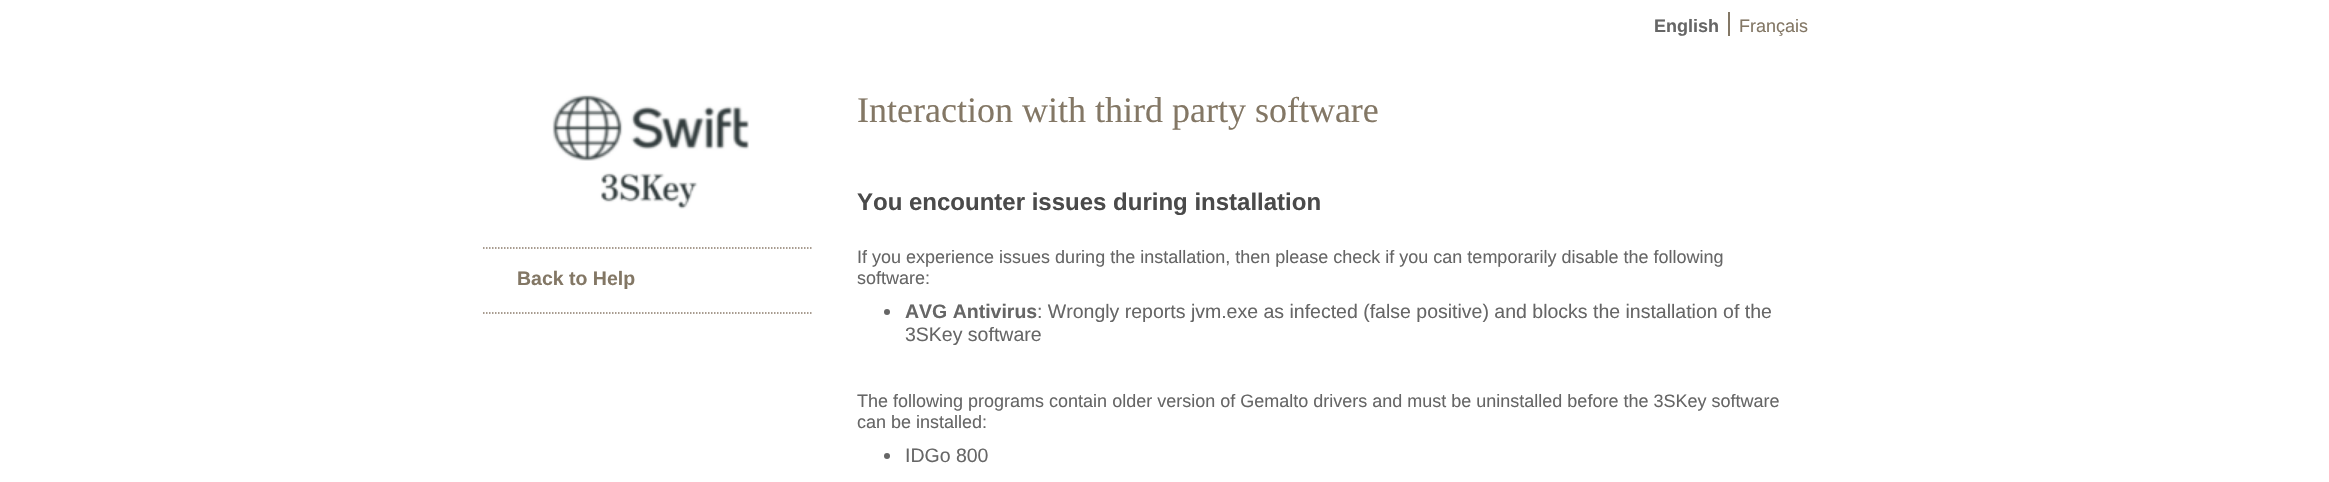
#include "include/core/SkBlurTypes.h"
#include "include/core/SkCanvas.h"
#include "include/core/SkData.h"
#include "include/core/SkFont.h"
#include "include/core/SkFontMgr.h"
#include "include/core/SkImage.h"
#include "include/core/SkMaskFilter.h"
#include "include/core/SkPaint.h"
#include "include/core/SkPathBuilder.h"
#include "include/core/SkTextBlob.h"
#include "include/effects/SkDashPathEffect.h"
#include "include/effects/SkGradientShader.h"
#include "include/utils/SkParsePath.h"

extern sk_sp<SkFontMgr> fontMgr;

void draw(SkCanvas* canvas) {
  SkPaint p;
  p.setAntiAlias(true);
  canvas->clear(SK_ColorWHITE);
  p.setColor(SkColorSetRGB(131, 119, 101));
  canvas->drawRect(SkRect::MakeLTRB(1728, 12, 1730, 36), p);
  canvas->drawImageRect(SkImages::DeferredFromEncodedData(SkData::MakeFromFileName("images/1.png")), SkRect::MakeLTRB(552, 94, 749, 209), SkSamplingOptions());
  p.setStyle(SkPaint::kStroke_Style);
  p.setStrokeWidth(1.5f);
  p.setColor(SkColorSetRGB(139, 123, 107));
  p.setPathEffect(SkDashPathEffect::Make({{1.5f, 1.5f}}, 0));
  canvas->drawPath(SkPathBuilder().moveTo(483, 248).lineTo(813, 248).detach(), p);
  p.setPathEffect(nullptr);
  p.setPathEffect(SkDashPathEffect::Make({{1.5f, 1.5f}}, 0));
  canvas->drawPath(SkPathBuilder().moveTo(483, 313).lineTo(813, 313).detach(), p);
  p.setPathEffect(nullptr);
  p.setStyle(SkPaint::kFill_Style);
  p.setColor(SkColorSetRGB(102, 102, 102));
  canvas->drawCircle(887, 312, 3, p);
  canvas->drawCircle(887, 456, 3, p);
  SkFont font1(fontMgr->matchFamilyStyle("Liberation Sans", SkFontStyle::Bold()), 18);
  font1.setSubpixel(true);
  canvas->drawString("English", 1654, 32, font1, p);
  SkFont font2(fontMgr->matchFamilyStyle("Liberation Sans", SkFontStyle::Normal()), 18);
  font2.setSubpixel(true);
  p.setColor(SkColorSetRGB(131, 119, 101));
  canvas->drawString("Français", 1739, 32, font2, p);
  SkFont font3(fontMgr->matchFamilyStyle("Liberation Sans", SkFontStyle::Bold()), 19.5f);
  font3.setSubpixel(true);
  canvas->drawString("Back to Help", 517, 285, font3, p);
  SkFont font4(fontMgr->matchFamilyStyle("Liberation Serif", SkFontStyle::Normal()), 36);
  font4.setSubpixel(true);
  canvas->drawString("Interaction with third party software", 857, 122, font4, p);
  SkFont font5(fontMgr->matchFamilyStyle("Liberation Sans", SkFontStyle::Bold()), 24);
  font5.setSubpixel(true);
  p.setColor(SkColorSetRGB(74, 74, 74));
  canvas->drawString("You encounter issues during installation", 857, 210, font5, p);
  p.setColor(SkColorSetRGB(102, 102, 102));
  canvas->drawString("If you experience issues during the installation, then please check if you can temporarily disable the following", 857, 263, font2, p);
  canvas->drawString("software:", 857, 284, font2, p);
  canvas->drawString("AVG Antivirus", 905, 318, font3, p);
  SkFont font6(fontMgr->matchFamilyStyle("Liberation Sans", SkFontStyle::Normal()), 19.5f);
  font6.setSubpixel(true);
  canvas->drawString(": Wrongly reports jvm.exe as infected (false positive) and blocks the installation of the", 1037, 318, font6, p);
  canvas->drawString("3SKey software", 905, 341, font6, p);
  canvas->drawString("The following programs contain older version of Gemalto drivers and must be uninstalled before the 3SKey software", 857, 407, font2, p);
  canvas->drawString("can be installed:", 857, 428, font2, p);
  canvas->drawString("IDGo 800", 905, 462, font6, p);
}
